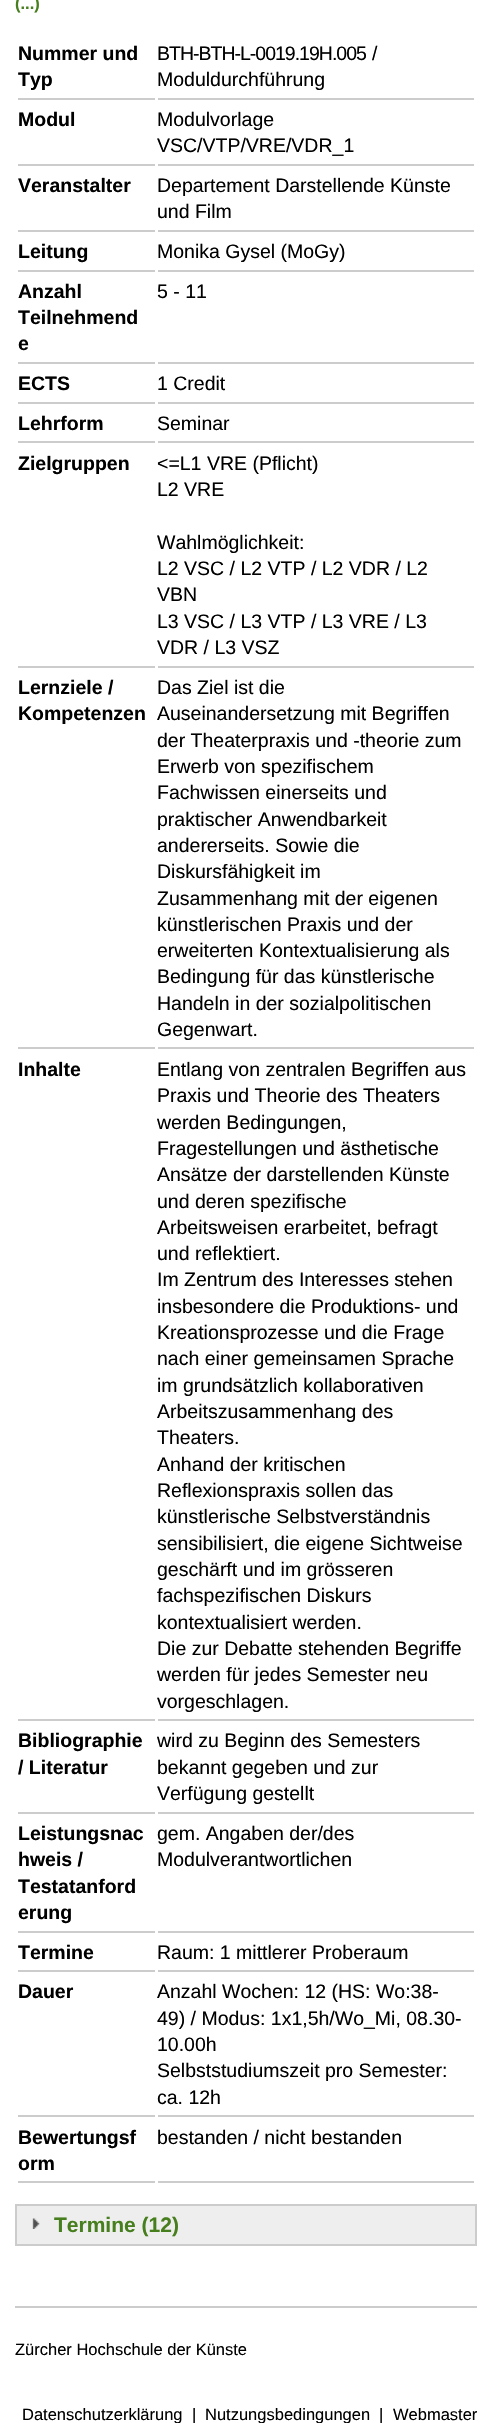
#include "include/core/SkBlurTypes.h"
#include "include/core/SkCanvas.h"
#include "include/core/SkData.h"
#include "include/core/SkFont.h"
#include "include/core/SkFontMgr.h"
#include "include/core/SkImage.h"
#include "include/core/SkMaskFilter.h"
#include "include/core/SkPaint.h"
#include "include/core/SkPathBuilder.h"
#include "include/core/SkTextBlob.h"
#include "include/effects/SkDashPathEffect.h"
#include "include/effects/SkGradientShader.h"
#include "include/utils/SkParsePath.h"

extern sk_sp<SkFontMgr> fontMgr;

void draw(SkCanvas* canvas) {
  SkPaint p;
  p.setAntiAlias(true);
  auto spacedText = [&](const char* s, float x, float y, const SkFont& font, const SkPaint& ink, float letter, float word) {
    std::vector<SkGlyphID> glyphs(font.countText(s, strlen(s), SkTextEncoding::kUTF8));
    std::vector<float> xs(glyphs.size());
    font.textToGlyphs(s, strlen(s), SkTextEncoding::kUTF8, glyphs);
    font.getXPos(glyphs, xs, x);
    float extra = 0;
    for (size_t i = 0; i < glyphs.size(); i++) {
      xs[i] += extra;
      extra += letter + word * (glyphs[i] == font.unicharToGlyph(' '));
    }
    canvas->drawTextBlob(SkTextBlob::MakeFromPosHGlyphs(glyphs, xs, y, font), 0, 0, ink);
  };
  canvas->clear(SK_ColorWHITE);
  p.setColor(SkColorSetRGB(204, 204, 204));
  canvas->drawRect(SkRect::MakeLTRB(18, 98, 155, 100), p);
  canvas->drawRect(SkRect::MakeLTRB(158, 98, 474, 100), p);
  canvas->drawRect(SkRect::MakeLTRB(18, 164, 155, 166), p);
  canvas->drawRect(SkRect::MakeLTRB(158, 164, 474, 166), p);
  canvas->drawRect(SkRect::MakeLTRB(18, 230, 155, 232), p);
  canvas->drawRect(SkRect::MakeLTRB(158, 230, 474, 232), p);
  canvas->drawRect(SkRect::MakeLTRB(18, 270, 155, 272), p);
  canvas->drawRect(SkRect::MakeLTRB(158, 270, 474, 272), p);
  canvas->drawRect(SkRect::MakeLTRB(18, 362, 155, 364), p);
  canvas->drawRect(SkRect::MakeLTRB(158, 362, 474, 364), p);
  canvas->drawRect(SkRect::MakeLTRB(18, 402, 155, 404), p);
  canvas->drawRect(SkRect::MakeLTRB(158, 402, 474, 404), p);
  canvas->drawRect(SkRect::MakeLTRB(18, 441, 155, 443), p);
  canvas->drawRect(SkRect::MakeLTRB(158, 441, 474, 443), p);
  canvas->drawRect(SkRect::MakeLTRB(18, 666, 155, 668), p);
  canvas->drawRect(SkRect::MakeLTRB(158, 666, 474, 668), p);
  canvas->drawRect(SkRect::MakeLTRB(18, 1047, 155, 1049), p);
  canvas->drawRect(SkRect::MakeLTRB(158, 1047, 474, 1049), p);
  canvas->drawRect(SkRect::MakeLTRB(18, 1719, 155, 1721), p);
  canvas->drawRect(SkRect::MakeLTRB(158, 1719, 474, 1721), p);
  canvas->drawRect(SkRect::MakeLTRB(18, 1812, 155, 1814), p);
  canvas->drawRect(SkRect::MakeLTRB(158, 1812, 474, 1814), p);
  canvas->drawRect(SkRect::MakeLTRB(18, 1931, 155, 1933), p);
  canvas->drawRect(SkRect::MakeLTRB(158, 1931, 474, 1933), p);
  canvas->drawRect(SkRect::MakeLTRB(18, 1970, 155, 1972), p);
  canvas->drawRect(SkRect::MakeLTRB(158, 1970, 474, 1972), p);
  canvas->drawRect(SkRect::MakeLTRB(18, 2115, 155, 2117), p);
  canvas->drawRect(SkRect::MakeLTRB(158, 2115, 474, 2117), p);
  canvas->drawRect(SkRect::MakeLTRB(18, 2181, 155, 2183), p);
  canvas->drawRect(SkRect::MakeLTRB(158, 2181, 474, 2183), p);
  p.setColor(SkColorSetRGB(238, 238, 238));
  canvas->drawRect(SkRect::MakeLTRB(17, 2206, 475, 2244), p);
  canvas->drawImageRect(SkImages::DeferredFromEncodedData(SkData::MakeFromFileName("images/1.png")), SkRect::MakeLTRB(32, 2218, 40, 2229), SkSamplingOptions());
  p.setStyle(SkPaint::kStroke_Style);
  p.setStrokeWidth(2);
  p.setColor(SkColorSetRGB(204, 204, 204));
  canvas->drawRect(SkRect::MakeLTRB(16, 2205, 476, 2245), p);
  p.setStyle(SkPaint::kFill_Style);
  canvas->drawRect(SkRect::MakeLTRB(15, 2306, 477, 2308), p);
  SkFont font1(fontMgr->matchFamilyStyle("Liberation Sans", SkFontStyle::Bold()), 16.5f);
  font1.setSubpixel(true);
  p.setColor(SkColorSetRGB(71, 126, 30));
  canvas->drawString("(...)", 15, 9, font1, p);
  SkFont font2(fontMgr->matchFamilyStyle("Liberation Sans", SkFontStyle::Bold()), 19.5f);
  font2.setSubpixel(true);
  p.setColor(SK_ColorBLACK);
  canvas->drawString("Nummer und", 18, 60, font2, p);
  canvas->drawString("Typ", 18, 86, font2, p);
  SkFont font3(fontMgr->matchFamilyStyle("Liberation Sans", SkFontStyle::Normal()), 19.5f);
  font3.setSubpixel(true);
  spacedText("BTH-BTH-L-0019.19H.005", 157, 60, font3, p, -1, 0);
  canvas->drawString("/", 372, 60, font3, p);
  canvas->drawString("Moduldurchführung", 157, 86, font3, p);
  canvas->drawString("Modul", 18, 126, font2, p);
  canvas->drawString("Modulvorlage", 157, 126, font3, p);
  canvas->drawString("VSC/VTP/VRE/VDR_1", 157, 152, font3, p);
  canvas->drawString("Veranstalter", 18, 192, font2, p);
  canvas->drawString("Departement Darstellende Künste", 157, 192, font3, p);
  canvas->drawString("und Film", 157, 218, font3, p);
  canvas->drawString("Leitung", 18, 258, font2, p);
  canvas->drawString("Monika Gysel (MoGy)", 157, 258, font3, p);
  canvas->drawString("Anzahl", 18, 298, font2, p);
  canvas->drawString("Teilnehmend", 18, 324, font2, p);
  canvas->drawString("e", 18, 350, font2, p);
  canvas->drawString("5 - 11", 157, 298, font3, p);
  canvas->drawString("ECTS", 18, 390, font2, p);
  canvas->drawString("1 Credit", 157, 390, font3, p);
  canvas->drawString("Lehrform", 18, 430, font2, p);
  canvas->drawString("Seminar", 157, 430, font3, p);
  canvas->drawString("Zielgruppen", 18, 470, font2, p);
  canvas->drawString("<=L1 VRE (Pflicht)", 157, 470, font3, p);
  canvas->drawString("L2 VRE", 157, 496, font3, p);
  canvas->drawString("Wahlmöglichkeit:", 157, 549, font3, p);
  canvas->drawString("L2 VSC / L2 VTP / L2 VDR / L2", 157, 575, font3, p);
  canvas->drawString("VBN", 157, 601, font3, p);
  canvas->drawString("L3 VSC / L3 VTP / L3 VRE / L3", 157, 628, font3, p);
  canvas->drawString("VDR / L3 VSZ", 157, 654, font3, p);
  canvas->drawString("Lernziele /", 18, 694, font2, p);
  canvas->drawString("Kompetenzen", 18, 720, font2, p);
  canvas->drawString("Das Ziel ist die", 157, 694, font3, p);
  canvas->drawString("Auseinandersetzung mit Begriffen", 157, 720, font3, p);
  canvas->drawString("der Theaterpraxis und -theorie zum", 157, 747, font3, p);
  canvas->drawString("Erwerb von spezifischem", 157, 773, font3, p);
  canvas->drawString("Fachwissen einerseits und", 157, 799, font3, p);
  canvas->drawString("praktischer Anwendbarkeit", 157, 826, font3, p);
  canvas->drawString("andererseits. Sowie die", 157, 852, font3, p);
  canvas->drawString("Diskursfähigkeit im", 157, 878, font3, p);
  canvas->drawString("Zusammenhang mit der eigenen", 157, 905, font3, p);
  canvas->drawString("künstlerischen Praxis und der", 157, 931, font3, p);
  canvas->drawString("erweiterten Kontextualisierung als", 157, 957, font3, p);
  canvas->drawString("Bedingung für das künstlerische", 157, 983, font3, p);
  canvas->drawString("Handeln in der sozialpolitischen", 157, 1010, font3, p);
  canvas->drawString("Gegenwart.", 157, 1036, font3, p);
  canvas->drawString("Inhalte", 18, 1076, font2, p);
  canvas->drawString("Entlang von zentralen Begriffen aus", 157, 1076, font3, p);
  canvas->drawString("Praxis und Theorie des Theaters", 157, 1102, font3, p);
  canvas->drawString("werden Bedingungen,", 157, 1129, font3, p);
  canvas->drawString("Fragestellungen und ästhetische", 157, 1155, font3, p);
  canvas->drawString("Ansätze der darstellenden Künste", 157, 1181, font3, p);
  canvas->drawString("und deren spezifische", 157, 1208, font3, p);
  canvas->drawString("Arbeitsweisen erarbeitet, befragt", 157, 1234, font3, p);
  canvas->drawString("und reflektiert.", 157, 1260, font3, p);
  canvas->drawString("Im Zentrum des Interesses stehen", 157, 1286, font3, p);
  canvas->drawString("insbesondere die Produktions- und", 157, 1313, font3, p);
  canvas->drawString("Kreationsprozesse und die Frage", 157, 1339, font3, p);
  canvas->drawString("nach einer gemeinsamen Sprache", 157, 1365, font3, p);
  canvas->drawString("im grundsätzlich kollaborativen", 157, 1392, font3, p);
  canvas->drawString("Arbeitszusammenhang des", 157, 1418, font3, p);
  canvas->drawString("Theaters.", 157, 1444, font3, p);
  canvas->drawString("Anhand der kritischen", 157, 1471, font3, p);
  canvas->drawString("Reflexionspraxis sollen das", 157, 1497, font3, p);
  canvas->drawString("künstlerische Selbstverständnis", 157, 1523, font3, p);
  canvas->drawString("sensibilisiert, die eigene Sichtweise", 157, 1550, font3, p);
  canvas->drawString("geschärft und im grösseren", 157, 1576, font3, p);
  canvas->drawString("fachspezifischen Diskurs", 157, 1602, font3, p);
  canvas->drawString("kontextualisiert werden.", 157, 1629, font3, p);
  canvas->drawString("Die zur Debatte stehenden Begriffe", 157, 1655, font3, p);
  canvas->drawString("werden für jedes Semester neu", 157, 1681, font3, p);
  canvas->drawString("vorgeschlagen.", 157, 1708, font3, p);
  canvas->drawString("Bibliographie", 18, 1747, font2, p);
  canvas->drawString("/ Literatur", 18, 1774, font2, p);
  canvas->drawString("wird zu Beginn des Semesters", 157, 1747, font3, p);
  canvas->drawString("bekannt gegeben und zur", 157, 1774, font3, p);
  canvas->drawString("Verfügung gestellt", 157, 1800, font3, p);
  canvas->drawString("Leistungsnac", 18, 1840, font2, p);
  canvas->drawString("hweis /", 18, 1866, font2, p);
  canvas->drawString("Testatanford", 18, 1893, font2, p);
  canvas->drawString("erung", 18, 1919, font2, p);
  canvas->drawString("gem. Angaben der/des", 157, 1840, font3, p);
  canvas->drawString("Modulverantwortlichen", 157, 1866, font3, p);
  canvas->drawString("Termine", 18, 1959, font2, p);
  canvas->drawString("Raum: 1 mittlerer Proberaum", 157, 1959, font3, p);
  canvas->drawString("Dauer", 18, 1998, font2, p);
  canvas->drawString("Anzahl Wochen: 12 (HS: Wo:38-", 157, 1998, font3, p);
  canvas->drawString("49) / Modus: 1x1,5h/Wo_Mi, 08.30-", 157, 2025, font3, p);
  canvas->drawString("10.00h", 157, 2051, font3, p);
  canvas->drawString("Selbststudiumszeit pro Semester:", 157, 2077, font3, p);
  canvas->drawString("ca. 12h", 157, 2104, font3, p);
  canvas->drawString("Bewertungsf", 18, 2144, font2, p);
  canvas->drawString("orm", 18, 2170, font2, p);
  canvas->drawString("bestanden / nicht bestanden", 157, 2144, font3, p);
  SkFont font4(fontMgr->matchFamilyStyle("Liberation Sans", SkFontStyle::Bold()), 21);
  font4.setSubpixel(true);
  p.setColor(SkColorSetRGB(71, 126, 30));
  canvas->drawString("Termine (12)", 54, 2232, font4, p);
  SkFont font5(fontMgr->matchFamilyStyle("Liberation Sans", SkFontStyle::Normal()), 16.5f);
  font5.setSubpixel(true);
  p.setColor(SK_ColorBLACK);
  canvas->drawString("Zürcher Hochschule der Künste", 15, 2355, font5, p);
  canvas->drawString("Datenschutzerklärung", 22, 2420, font5, p);
  canvas->drawString("|", 192, 2420, font5, p);
  canvas->drawString("Nutzungsbedingungen", 205, 2420, font5, p);
  canvas->drawString("|", 379, 2420, font5, p);
  canvas->drawString("Webmaster", 393, 2420, font5, p);
}
